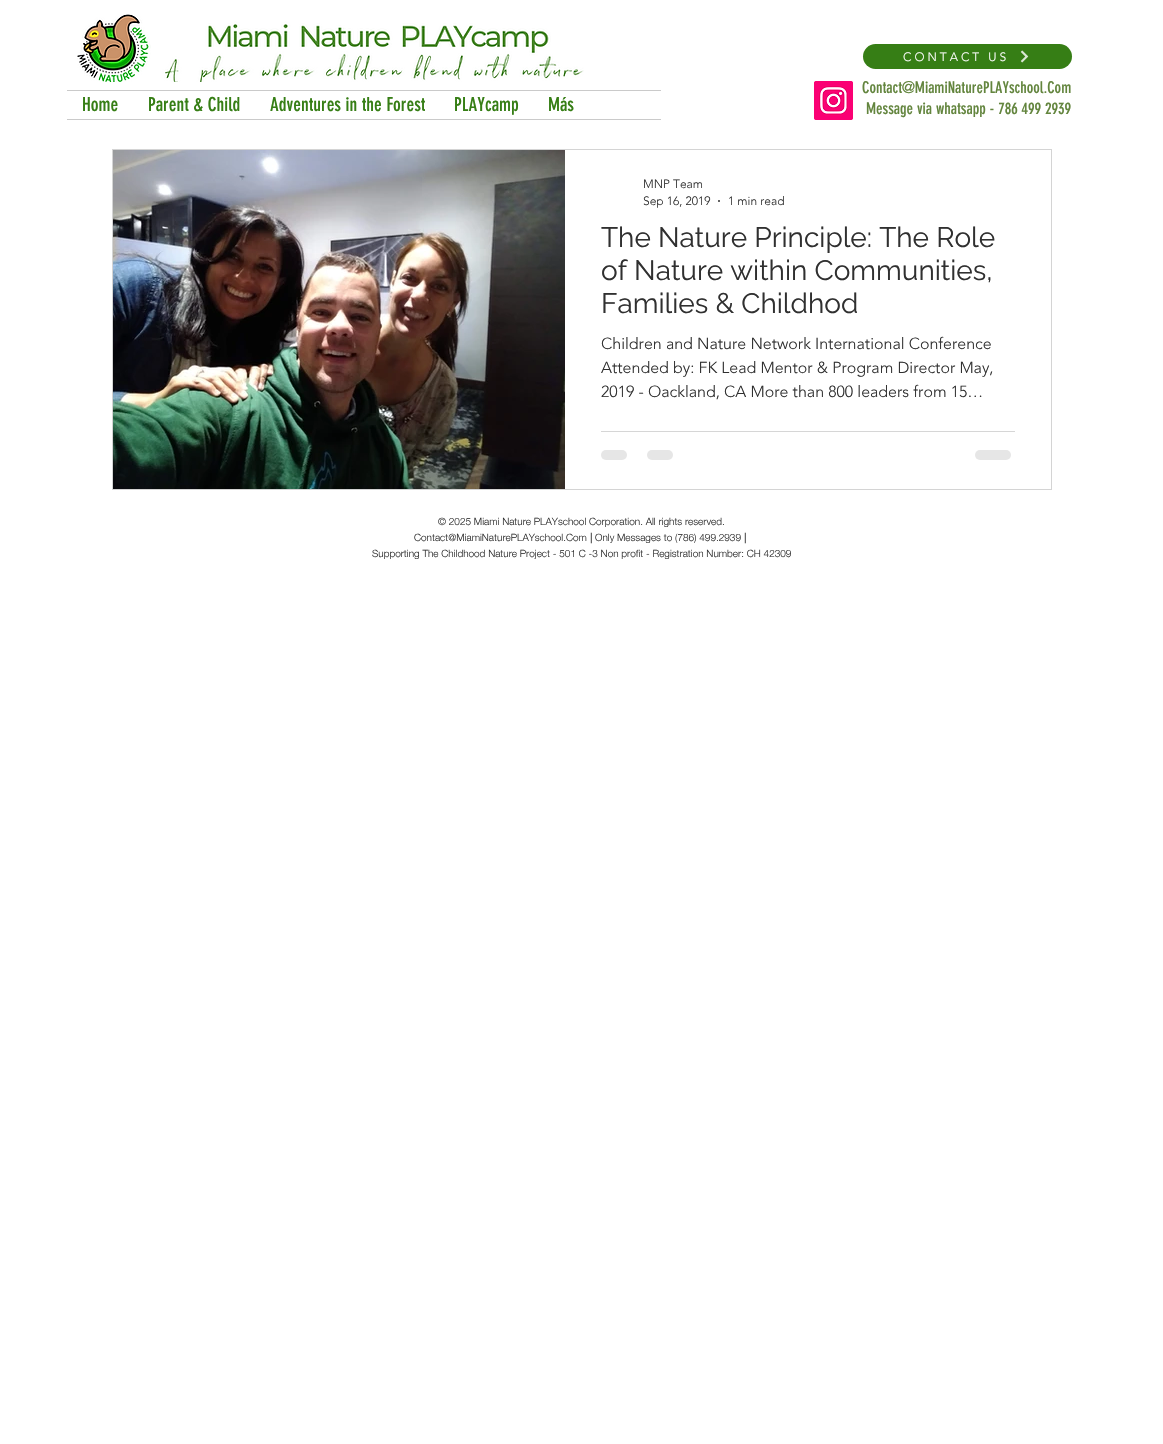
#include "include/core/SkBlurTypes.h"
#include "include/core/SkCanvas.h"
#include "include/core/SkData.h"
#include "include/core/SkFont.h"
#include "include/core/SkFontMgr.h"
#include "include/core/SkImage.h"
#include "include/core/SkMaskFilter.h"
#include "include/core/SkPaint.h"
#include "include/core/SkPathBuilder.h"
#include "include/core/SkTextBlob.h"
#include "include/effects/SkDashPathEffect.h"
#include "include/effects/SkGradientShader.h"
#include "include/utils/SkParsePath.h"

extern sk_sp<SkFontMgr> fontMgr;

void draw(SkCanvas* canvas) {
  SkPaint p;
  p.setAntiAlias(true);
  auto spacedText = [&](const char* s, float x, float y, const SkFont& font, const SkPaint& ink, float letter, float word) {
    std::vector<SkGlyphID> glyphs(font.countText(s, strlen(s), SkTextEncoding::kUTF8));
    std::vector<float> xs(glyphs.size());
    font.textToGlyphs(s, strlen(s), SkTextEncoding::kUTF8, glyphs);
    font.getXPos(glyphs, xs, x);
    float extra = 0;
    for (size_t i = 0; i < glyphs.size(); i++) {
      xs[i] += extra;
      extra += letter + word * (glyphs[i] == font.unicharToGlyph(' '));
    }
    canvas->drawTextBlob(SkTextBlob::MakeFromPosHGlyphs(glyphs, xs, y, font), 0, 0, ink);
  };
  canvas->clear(SK_ColorWHITE);
  canvas->drawImageRect(SkImages::DeferredFromEncodedData(SkData::MakeFromFileName("images/1.png")), SkRect::MakeLTRB(77, 14, 584, 82), SkSamplingOptions());
  p.setColor(SkColorSetRGB(54, 126, 21));
  canvas->drawRoundRect(SkRect::MakeLTRB(863, 44, 1072, 69), 12.5f, 12.5f, p);
  canvas->drawImageRect(SkImages::DeferredFromEncodedData(SkData::MakeFromFileName("images/2.png")), SkRect::MakeLTRB(1020, 50, 1029, 63), SkSamplingOptions());
  p.setColor(SkColorSetRGB(202, 202, 202));
  canvas->drawRect(SkRect::MakeLTRB(67, 90, 661, 91), p);
  canvas->drawRect(SkRect::MakeLTRB(67, 119, 661, 120), p);
  canvas->drawImageRect(SkImages::DeferredFromEncodedData(SkData::MakeFromFileName("images/3.png")), SkRect::MakeLTRB(814, 81, 853, 120), SkSamplingOptions());
  p.setStyle(SkPaint::kStroke_Style);
  p.setStrokeWidth(1);
  p.setColor(SkColorSetRGB(212, 212, 212));
  canvas->drawRect(SkRect::MakeLTRB(112.5f, 149.5f, 1051.5f, 489.5f), p);
  canvas->drawImageRect(SkImages::DeferredFromEncodedData(SkData::MakeFromFileName("images/4.png")), SkRect::MakeLTRB(113, 150, 565, 489), SkSamplingOptions());
  p.setStyle(SkPaint::kFill_Style);
  p.setColor(SkColorSetRGB(48, 48, 48));
  canvas->drawCircle(719, 201, 1, p);
  p.setColor(SkColorSetRGB(214, 214, 214));
  canvas->drawRect(SkRect::MakeLTRB(601, 431, 1015, 432), p);
  p.setColor(SkColorSetRGB(230, 230, 230));
  canvas->drawRoundRect(SkRect::MakeLTRB(601, 450, 627, 460), 5, 5, p);
  canvas->drawRoundRect(SkRect::MakeLTRB(647, 450, 673, 460), 5, 5, p);
  canvas->drawRoundRect(SkRect::MakeLTRB(975, 450, 1011, 460), 5, 5, p);
  SkFont font1(fontMgr->matchFamilyStyle("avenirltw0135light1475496", SkFontStyle(300, SkFontStyle::kNormal_Width, SkFontStyle::kUpright_Slant)), 12);
  font1.setSubpixel(true);
  p.setColor(SK_ColorWHITE);
  spacedText("CONTACT US", 903, 61, font1, p, 3, 0);
  SkFont font2(fontMgr->matchFamilyStyle("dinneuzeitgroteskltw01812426", SkFontStyle::Normal()), 19);
  font2.setSubpixel(true);
  p.setColor(SkColorSetRGB(54, 126, 21));
  canvas->drawString("Home", 82, 111, font2, p);
  canvas->drawString("Parent & Child", 148, 111, font2, p);
  canvas->drawString("Adventures in the Forest", 270, 111, font2, p);
  canvas->drawString("PLAYcamp", 454, 111, font2, p);
  canvas->drawString("Más", 548, 111, font2, p);
  SkFont font3(fontMgr->matchFamilyStyle("dinneuzeitgroteskltw01812426", SkFontStyle::Normal()), 16);
  font3.setSubpixel(true);
  p.setColor(SkColorSetRGB(99, 133, 62));
  canvas->drawString("Contact@MiamiNaturePLAYschool.Com", 862, 93, font3, p);
  canvas->drawString("Message via whatsapp - 786 499 2939", 866, 114, font3, p);
  p.setColor(SkColorSetRGB(48, 48, 48));
  canvas->drawString("MNP Team", 643, 188, font1, p);
  canvas->drawString("Sep 16, 2019", 643, 205, font1, p);
  canvas->drawString("1 min read", 728, 205, font1, p);
  SkFont font4(fontMgr->matchFamilyStyle("Raleway", SkFontStyle::Normal()), 28);
  font4.setSubpixel(true);
  canvas->drawString("The Nature Principle: The Role", 601, 247, font4, p);
  canvas->drawString("of Nature within Communities,", 601, 280, font4, p);
  canvas->drawString("Families & Childhod", 601, 313, font4, p);
  SkFont font5(fontMgr->matchFamilyStyle("avenirltw0135light1475496", SkFontStyle(300, SkFontStyle::kNormal_Width, SkFontStyle::kUpright_Slant)), 16);
  font5.setSubpixel(true);
  canvas->drawString("Children and Nature Network International Conference", 601, 349, font5, p);
  canvas->drawString("Attended by: FK Lead Mentor & Program Director May,", 601, 373, font5, p);
  canvas->drawString("2019 - Oackland, CA More than 800 leaders from 15…", 601, 397, font5, p);
  SkFont font6(fontMgr->matchFamilyStyle("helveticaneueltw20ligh", SkFontStyle(300, SkFontStyle::kNormal_Width, SkFontStyle::kUpright_Slant)), 10);
  font6.setSubpixel(true);
  canvas->drawString("© 2025 Miami Nature PLAYschool Corporation. All rights reserved.", 438, 525, font6, p);
  canvas->drawString("Contact@MiamiNaturePLAYschool.Com", 414, 541, font6, p);
  SkFont font7(fontMgr->matchFamilyStyle("helveticaneueltw20ligh", SkFontStyle::Bold()), 10);
  font7.setSubpixel(true);
  canvas->drawString("|", 590, 541, font7, p);
  canvas->drawString("Only Messages to (786) 499.2939", 595, 541, font6, p);
  canvas->drawString("|", 744, 541, font7, p);
  canvas->drawString("Supporting The Childhood Nature Project - 501 C -3 Non profit - Registration Number: CH 42309", 372, 557, font6, p);
}
